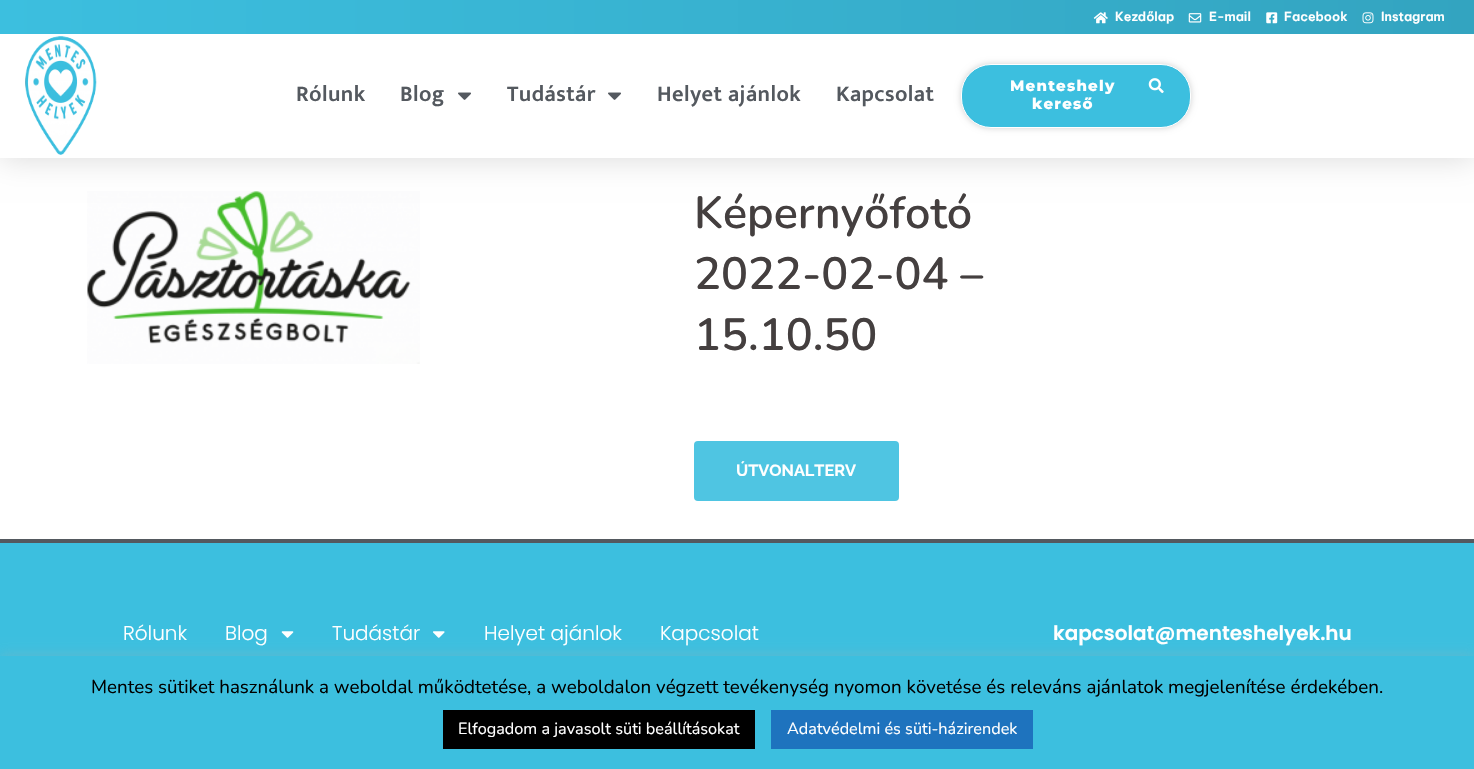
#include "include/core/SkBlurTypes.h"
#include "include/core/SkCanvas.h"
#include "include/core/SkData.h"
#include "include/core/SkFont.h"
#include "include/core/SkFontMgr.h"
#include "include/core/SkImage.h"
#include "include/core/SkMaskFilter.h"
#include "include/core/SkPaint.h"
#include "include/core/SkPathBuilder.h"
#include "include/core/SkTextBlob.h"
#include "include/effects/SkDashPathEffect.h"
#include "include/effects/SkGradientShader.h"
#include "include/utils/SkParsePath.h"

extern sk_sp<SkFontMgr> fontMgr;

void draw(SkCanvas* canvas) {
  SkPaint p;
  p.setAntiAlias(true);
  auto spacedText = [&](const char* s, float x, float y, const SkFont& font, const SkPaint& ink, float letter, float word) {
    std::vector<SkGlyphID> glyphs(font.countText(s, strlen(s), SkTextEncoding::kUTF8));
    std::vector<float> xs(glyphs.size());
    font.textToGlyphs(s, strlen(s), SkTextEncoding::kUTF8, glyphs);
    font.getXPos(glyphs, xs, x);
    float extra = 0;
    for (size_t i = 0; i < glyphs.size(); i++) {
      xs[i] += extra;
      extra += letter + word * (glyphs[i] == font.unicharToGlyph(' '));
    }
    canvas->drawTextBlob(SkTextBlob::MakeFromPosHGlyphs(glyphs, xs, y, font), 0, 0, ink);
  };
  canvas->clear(SK_ColorWHITE);
  canvas->drawImageRect(SkImages::DeferredFromEncodedData(SkData::MakeFromFileName("images/8.png")), SkRect::MakeLTRB(87, 191, 420, 364), SkSamplingOptions());
  p.setColor(SkColorSetARGB(38, 0, 0, 0));
  p.setMaskFilter(SkMaskFilter::MakeBlur(kNormal_SkBlurStyle, 15));
  canvas->drawRect(SkRect::MakeLTRB(0, 33, 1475, 158), p);
  p.setMaskFilter(nullptr);
  {
    const SkColor colors[] = {SkColorSetRGB(60, 191, 223), SkColorSetRGB(51, 164, 192)};
    const float stops[] = {0, 1};
    const SkPoint ends[] = {{0, 17}, {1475, 17}};
    p.setShader(SkGradientShader::MakeLinear(ends, colors, stops, 2, SkTileMode::kClamp));
    p.setAlpha(255);
  }
  canvas->drawRect(SkRect::MakeLTRB(0, 0, 1474, 34), p);
  canvas->drawImageRect(SkImages::DeferredFromEncodedData(SkData::MakeFromFileName("images/1.png")), SkRect::MakeLTRB(1093, 12, 1108, 24), SkSamplingOptions());
  canvas->drawImageRect(SkImages::DeferredFromEncodedData(SkData::MakeFromFileName("images/2.png")), SkRect::MakeLTRB(1188, 13, 1202, 23), SkSamplingOptions());
  canvas->drawImageRect(SkImages::DeferredFromEncodedData(SkData::MakeFromFileName("images/3.png")), SkRect::MakeLTRB(1266, 12, 1278, 24), SkSamplingOptions());
  canvas->drawImageRect(SkImages::DeferredFromEncodedData(SkData::MakeFromFileName("images/4.png")), SkRect::MakeLTRB(1362, 12, 1374, 24), SkSamplingOptions());
  p.setShader(nullptr);
  p.setColor(SK_ColorWHITE);
  canvas->drawRect(SkRect::MakeLTRB(0, 34, 1474, 158), p);
  canvas->drawImageRect(SkImages::DeferredFromEncodedData(SkData::MakeFromFileName("images/5.png")), SkRect::MakeLTRB(25, 36, 97, 155), SkSamplingOptions());
  canvas->drawImageRect(SkImages::DeferredFromEncodedData(SkData::MakeFromFileName("images/6.png")), SkRect::MakeLTRB(458, 92, 471, 100), SkSamplingOptions());
  canvas->drawImageRect(SkImages::DeferredFromEncodedData(SkData::MakeFromFileName("images/6.png")), SkRect::MakeLTRB(608, 92, 621, 100), SkSamplingOptions());
  p.setColor(SkColorSetARGB(46, 0, 0, 0));
  p.setMaskFilter(SkMaskFilter::MakeBlur(kNormal_SkBlurStyle, 3));
  canvas->drawRoundRect(SkRect::MakeLTRB(961, 64, 1191, 128), 30, 30, p);
  p.setMaskFilter(nullptr);
  p.setColor(SkColorSetRGB(60, 191, 223));
  canvas->drawRoundRect(SkRect::MakeLTRB(961.5f, 64.5f, 1190.5f, 127.5f), 29.5f, 29.5f, p);
  p.setStyle(SkPaint::kStroke_Style);
  p.setStrokeWidth(1);
  p.setColor(SK_ColorWHITE);
  canvas->drawRoundRect(SkRect::MakeLTRB(961.5f, 64.5f, 1190.5f, 127.5f), 29.5f, 29.5f, p);
  canvas->drawImageRect(SkImages::DeferredFromEncodedData(SkData::MakeFromFileName("images/7.png")), SkRect::MakeLTRB(1148, 78, 1164, 94), SkSamplingOptions());
  p.setStyle(SkPaint::kFill_Style);
  p.setColor(SkColorSetRGB(79, 197, 226));
  canvas->drawRoundRect(SkRect::MakeLTRB(694, 441, 899, 501), 4, 4, p);
  p.setColor(SkColorSetRGB(60, 191, 223));
  canvas->drawRect(SkRect::MakeLTRB(0, 543, 1474, 656), p);
  p.setColor(SkColorSetRGB(84, 89, 95));
  canvas->drawRect(SkRect::MakeLTRB(0, 539, 1474, 543), p);
  canvas->drawImageRect(SkImages::DeferredFromEncodedData(SkData::MakeFromFileName("images/9.png")), SkRect::MakeLTRB(281, 631, 294, 638), SkSamplingOptions());
  canvas->drawImageRect(SkImages::DeferredFromEncodedData(SkData::MakeFromFileName("images/10.png")), SkRect::MakeLTRB(433, 631, 445, 638), SkSamplingOptions());
  p.setColor(SkColorSetARGB(77, 172, 171, 171));
  p.setMaskFilter(SkMaskFilter::MakeBlur(kNormal_SkBlurStyle, 6));
  canvas->drawRect(SkRect::MakeLTRB(0, 655, 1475, 769), p);
  p.setMaskFilter(nullptr);
  p.setColor(SkColorSetRGB(60, 191, 223));
  canvas->drawRect(SkRect::MakeLTRB(0, 656, 1474, 769), p);
  p.setColor(SK_ColorBLACK);
  canvas->drawRect(SkRect::MakeLTRB(443, 710, 755, 749), p);
  p.setColor(SkColorSetRGB(30, 115, 190));
  canvas->drawRect(SkRect::MakeLTRB(771, 710, 1033, 749), p);
  SkFont font1(fontMgr->matchFamilyStyle("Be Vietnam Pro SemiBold", SkFontStyle(600, SkFontStyle::kNormal_Width, SkFontStyle::kUpright_Slant)), 12.5f);
  font1.setSubpixel(true);
  p.setColor(SK_ColorWHITE);
  canvas->drawString("Kezdőlap", 1115, 21, font1, p);
  canvas->drawString("E-mail", 1209, 21, font1, p);
  canvas->drawString("Facebook", 1284, 21, font1, p);
  canvas->drawString("Instagram", 1381, 21, font1, p);
  SkFont font2(fontMgr->matchFamilyStyle("Mukta Mahee", SkFontStyle(600, SkFontStyle::kNormal_Width, SkFontStyle::kUpright_Slant)), 22.5f);
  font2.setSubpixel(true);
  p.setColor(SkColorSetRGB(84, 89, 95));
  spacedText("Rólunk", 296, 101, font2, p, 0.4f, 0);
  spacedText("Blog", 400, 101, font2, p, 0.4f, 0);
  spacedText("Tudástár", 507, 101, font2, p, 0.4f, 0);
  spacedText("Helyet ajánlok", 657, 101, font2, p, 0.4f, 0);
  spacedText("Kapcsolat", 836, 101, font2, p, 0.4f, 0);
  SkFont font3(fontMgr->matchFamilyStyle("Montserrat", SkFontStyle(800, SkFontStyle::kNormal_Width, SkFontStyle::kUpright_Slant)), 15);
  font3.setSubpixel(true);
  p.setColor(SK_ColorWHITE);
  spacedText("Menteshely", 1010, 91, font3, p, 1.25f, 0);
  spacedText("kereső", 1032, 109, font3, p, 1.25f, 0);
  SkFont font4(fontMgr->matchFamilyStyle("Nunito", SkFontStyle(600, SkFontStyle::kNormal_Width, SkFontStyle::kUpright_Slant)), 45);
  font4.setSubpixel(true);
  p.setColor(SkColorSetRGB(68, 63, 63));
  canvas->drawString("Képernyőfotó", 694, 228, font4, p);
  canvas->drawString("2022-02-04 –", 694, 289, font4, p);
  canvas->drawString("15.10.50", 694, 350, font4, p);
  SkFont font5(fontMgr->matchFamilyStyle("Raleway", SkFontStyle::Bold()), 16.25f);
  font5.setSubpixel(true);
  p.setColor(SK_ColorWHITE);
  canvas->drawString("ÚTVONALTERV", 736, 476, font5, p);
  SkFont font6(fontMgr->matchFamilyStyle("Poppins", SkFontStyle(300, SkFontStyle::kNormal_Width, SkFontStyle::kUpright_Slant)), 20);
  font6.setSubpixel(true);
  canvas->drawString("Rólunk", 123, 640, font6, p);
  canvas->drawString("Blog", 225, 640, font6, p);
  canvas->drawString("Tudástár", 332, 640, font6, p);
  canvas->drawString("Helyet ajánlok", 484, 640, font6, p);
  canvas->drawString("Kapcsolat", 660, 640, font6, p);
  SkFont font7(fontMgr->matchFamilyStyle("Poppins", SkFontStyle(600, SkFontStyle::kNormal_Width, SkFontStyle::kUpright_Slant)), 20);
  font7.setSubpixel(true);
  canvas->drawString("kapcsolat@menteshelyek.hu", 1053, 640, font7, p);
  SkFont font8(fontMgr->matchFamilyStyle("Nunito", SkFontStyle::Normal()), 18.75f);
  font8.setSubpixel(true);
  p.setColor(SK_ColorBLACK);
  canvas->drawString("Mentes sütiket használunk a weboldal működtetése, a weboldalon végzett tevékenység nyomon követése és releváns ajánlatok megjelenítése érdekében.", 91, 693, font8, p);
  SkFont font9(fontMgr->matchFamilyStyle("Nunito", SkFontStyle::Normal()), 16.25f);
  font9.setSubpixel(true);
  p.setColor(SK_ColorWHITE);
  canvas->drawString("Elfogadom a javasolt süti beállításokat", 458, 734, font9, p);
  canvas->drawString("Adatvédelmi és süti-házirendek", 787, 734, font9, p);
}
